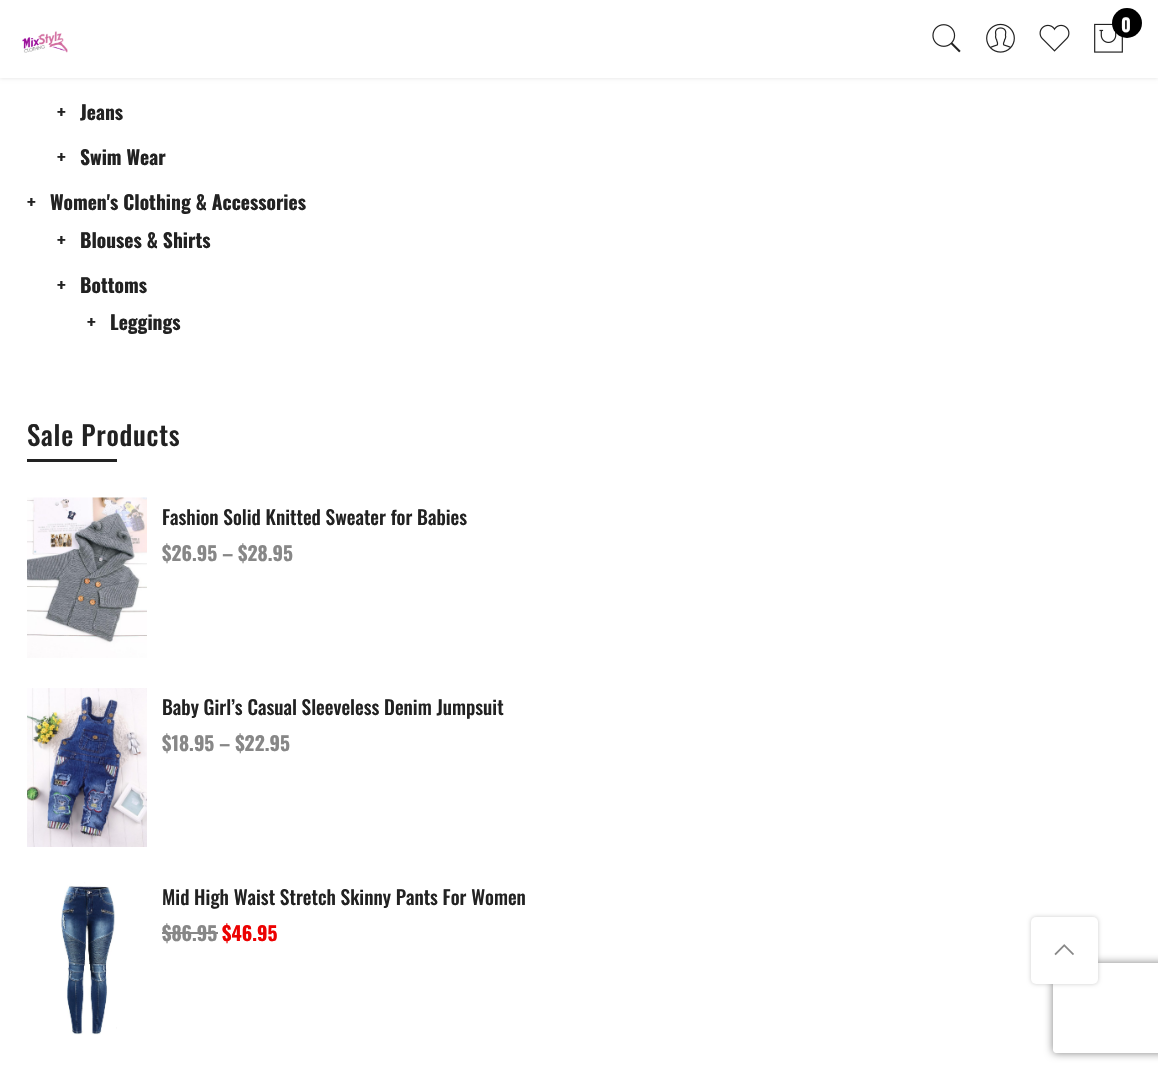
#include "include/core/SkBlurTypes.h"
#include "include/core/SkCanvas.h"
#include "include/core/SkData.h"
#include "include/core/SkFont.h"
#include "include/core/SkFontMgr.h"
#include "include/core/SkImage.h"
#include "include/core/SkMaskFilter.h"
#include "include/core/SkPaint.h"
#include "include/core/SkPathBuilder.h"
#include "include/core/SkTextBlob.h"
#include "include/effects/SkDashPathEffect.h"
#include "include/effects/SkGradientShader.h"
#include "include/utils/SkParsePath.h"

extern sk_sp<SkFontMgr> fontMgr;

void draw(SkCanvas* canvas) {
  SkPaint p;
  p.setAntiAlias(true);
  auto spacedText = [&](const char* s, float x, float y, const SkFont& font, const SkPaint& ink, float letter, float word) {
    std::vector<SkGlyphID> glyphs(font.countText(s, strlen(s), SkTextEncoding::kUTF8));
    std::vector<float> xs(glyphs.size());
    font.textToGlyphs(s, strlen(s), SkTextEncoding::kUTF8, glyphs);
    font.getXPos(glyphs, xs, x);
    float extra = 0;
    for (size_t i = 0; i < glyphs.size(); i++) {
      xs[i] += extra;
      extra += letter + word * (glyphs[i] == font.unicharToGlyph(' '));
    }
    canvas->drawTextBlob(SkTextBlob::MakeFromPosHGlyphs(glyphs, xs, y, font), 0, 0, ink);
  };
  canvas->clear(SK_ColorWHITE);
  p.setColor(SkColorSetARGB(31, 0, 0, 0));
  p.setMaskFilter(SkMaskFilter::MakeBlur(kNormal_SkBlurStyle, 2));
  canvas->drawRect(SkRect::MakeLTRB(0, 0, 1158, 78), p);
  p.setMaskFilter(nullptr);
  p.setColor(SK_ColorWHITE);
  canvas->drawRect(SkRect::MakeLTRB(0, 0, 1158, 78), p);
  canvas->drawImageRect(SkImages::DeferredFromEncodedData(SkData::MakeFromFileName("images/1.png")), SkRect::MakeLTRB(932, 24, 961, 53), SkSamplingOptions());
  canvas->drawImageRect(SkImages::DeferredFromEncodedData(SkData::MakeFromFileName("images/2.png")), SkRect::MakeLTRB(986, 23, 1015, 53), SkSamplingOptions());
  canvas->drawImageRect(SkImages::DeferredFromEncodedData(SkData::MakeFromFileName("images/3.png")), SkRect::MakeLTRB(1039, 24, 1070, 52), SkSamplingOptions());
  canvas->drawImageRect(SkImages::DeferredFromEncodedData(SkData::MakeFromFileName("images/4.png")), SkRect::MakeLTRB(1094, 23, 1123, 53), SkSamplingOptions());
  p.setColor(SK_ColorBLACK);
  canvas->drawCircle(1127, 23, 15, p);
  canvas->drawImageRect(SkImages::DeferredFromEncodedData(SkData::MakeFromFileName("images/5.png")), SkRect::MakeLTRB(22, 31, 68, 53), SkSamplingOptions());
  p.setColor(SkColorSetRGB(34, 34, 34));
  canvas->drawRect(SkRect::MakeLTRB(27, 459, 117, 462), p);
  canvas->drawImageRect(SkImages::DeferredFromEncodedData(SkData::MakeFromFileName("images/6.png")), SkRect::MakeLTRB(27, 497, 147, 658), SkSamplingOptions());
  canvas->drawImageRect(SkImages::DeferredFromEncodedData(SkData::MakeFromFileName("images/7.png")), SkRect::MakeLTRB(27, 688, 147, 847), SkSamplingOptions());
  canvas->drawImageRect(SkImages::DeferredFromEncodedData(SkData::MakeFromFileName("images/8.png")), SkRect::MakeLTRB(61, 882, 117, 1035), SkSamplingOptions());
  p.setColor(SkColorSetRGB(135, 135, 135));
  canvas->drawRect(SkRect::MakeLTRB(162, 932, 218, 934), p);
  p.setColor(SkColorSetARGB(51, 0, 0, 0));
  p.setMaskFilter(SkMaskFilter::MakeBlur(kNormal_SkBlurStyle, 2));
  canvas->drawRoundRect(SkRect::MakeLTRB(1031, 917, 1098, 984), 5, 5, p);
  p.setMaskFilter(nullptr);
  canvas->save();
  canvas->clipPath(SkPathBuilder(SkPathFillType::kEvenOdd).moveTo(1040, 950).lineTo(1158, 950).lineTo(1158, 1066).lineTo(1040, 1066).close().moveTo(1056, 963).lineTo(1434, 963).cubicTo(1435.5f, 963, 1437, 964.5f, 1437, 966).lineTo(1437, 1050).cubicTo(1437, 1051.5f, 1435.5f, 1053, 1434, 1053).lineTo(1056, 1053).cubicTo(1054.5f, 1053, 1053, 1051.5f, 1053, 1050).lineTo(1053, 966).cubicTo(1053, 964.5f, 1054.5f, 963, 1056, 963).close().detach(), true);
  p.setColor(SkColorSetRGB(128, 128, 128));
  p.setMaskFilter(SkMaskFilter::MakeBlur(kNormal_SkBlurStyle, 4));
  canvas->drawRoundRect(SkRect::MakeLTRB(1053, 963, 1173, 1053), 3, 3, p);
  p.setMaskFilter(nullptr);
  canvas->restore();
  p.setColor(SK_ColorWHITE);
  canvas->drawRoundRect(SkRect::MakeLTRB(1031, 917, 1098, 984), 5, 5, p);
  canvas->drawImageRect(SkImages::DeferredFromEncodedData(SkData::MakeFromFileName("images/9.png")), SkRect::MakeLTRB(1054, 944, 1074, 956), SkSamplingOptions());
  SkFont font1(fontMgr->matchFamilyStyle("Oswald", SkFontStyle::Bold()), 18);
  font1.setSubpixel(true);
  canvas->drawString("0", 1121, 32, font1, p);
  SkFont font2(fontMgr->matchFamilyStyle("Oswald", SkFontStyle::Bold()), 19.5f);
  font2.setSubpixel(true);
  p.setColor(SkColorSetRGB(34, 34, 34));
  canvas->drawString("+", 57, 120, font2, p);
  canvas->drawString("Jeans", 80, 120, font2, p);
  canvas->drawString("+", 57, 165, font2, p);
  canvas->drawString("Swim Wear", 80, 165, font2, p);
  canvas->drawString("+", 27, 210, font2, p);
  canvas->drawString("Women's Clothing & Accessories", 50, 210, font2, p);
  canvas->drawString("+", 57, 248, font2, p);
  canvas->drawString("Blouses & Shirts", 80, 248, font2, p);
  canvas->drawString("+", 57, 293, font2, p);
  canvas->drawString("Bottoms", 80, 293, font2, p);
  canvas->drawString("+", 87, 330, font2, p);
  canvas->drawString("Leggings", 110, 330, font2, p);
  SkFont font3(fontMgr->matchFamilyStyle("Oswald", SkFontStyle(500, SkFontStyle::kNormal_Width, SkFontStyle::kUpright_Slant)), 27);
  font3.setSubpixel(true);
  spacedText("Sale Products", 27, 446, font3, p, 0.75f, 0);
  SkFont font4(fontMgr->matchFamilyStyle("Oswald", SkFontStyle(500, SkFontStyle::kNormal_Width, SkFontStyle::kUpright_Slant)), 19.5f);
  font4.setSubpixel(true);
  canvas->drawString("Fashion Solid Knitted Sweater for Babies", 162, 525, font4, p);
  p.setColor(SkColorSetRGB(135, 135, 135));
  canvas->drawString("$26.95 – $28.95", 162, 561, font2, p);
  p.setColor(SkColorSetRGB(34, 34, 34));
  canvas->drawString("Baby Girl’s Casual Sleeveless Denim Jumpsuit", 162, 715, font4, p);
  p.setColor(SkColorSetRGB(135, 135, 135));
  canvas->drawString("$18.95 – $22.95", 162, 751, font2, p);
  p.setColor(SkColorSetRGB(34, 34, 34));
  canvas->drawString("Mid High Waist Stretch Skinny Pants For Women", 162, 905, font4, p);
  p.setColor(SkColorSetRGB(135, 135, 135));
  canvas->drawString("$86.95", 162, 941, font2, p);
  p.setColor(SkColorSetRGB(236, 1, 1));
  canvas->drawString("$46.95", 222, 941, font2, p);
}
